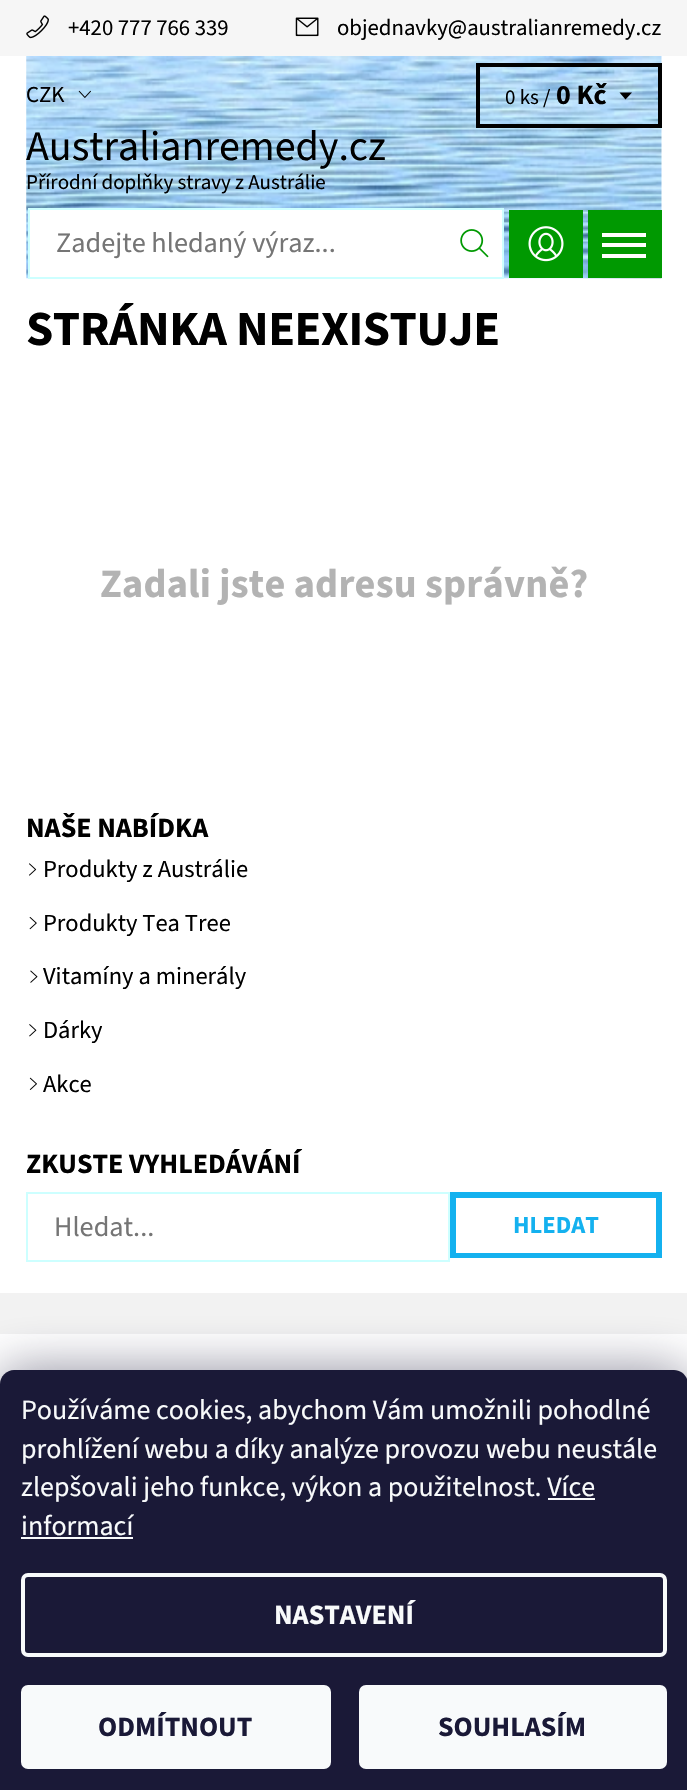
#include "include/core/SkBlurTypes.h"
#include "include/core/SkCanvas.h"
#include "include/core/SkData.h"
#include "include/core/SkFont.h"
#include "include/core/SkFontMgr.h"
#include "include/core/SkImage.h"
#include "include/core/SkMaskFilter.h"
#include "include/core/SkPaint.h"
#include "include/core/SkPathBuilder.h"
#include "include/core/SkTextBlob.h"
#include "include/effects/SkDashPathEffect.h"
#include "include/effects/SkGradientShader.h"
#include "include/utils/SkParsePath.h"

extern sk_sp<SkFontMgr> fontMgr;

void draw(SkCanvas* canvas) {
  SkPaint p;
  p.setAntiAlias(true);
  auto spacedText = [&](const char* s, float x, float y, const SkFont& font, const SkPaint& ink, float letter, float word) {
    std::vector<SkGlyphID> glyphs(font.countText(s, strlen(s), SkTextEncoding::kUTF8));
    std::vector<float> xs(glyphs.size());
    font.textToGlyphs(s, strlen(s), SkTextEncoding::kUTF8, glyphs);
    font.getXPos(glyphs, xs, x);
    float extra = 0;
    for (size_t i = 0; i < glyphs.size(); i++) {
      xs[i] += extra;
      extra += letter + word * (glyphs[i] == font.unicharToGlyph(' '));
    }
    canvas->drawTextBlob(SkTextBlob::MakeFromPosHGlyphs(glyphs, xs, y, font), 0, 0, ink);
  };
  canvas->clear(SK_ColorWHITE);
  p.setColor(SkColorSetRGB(246, 246, 246));
  canvas->drawRect(SkRect::MakeLTRB(0, 0, 687, 56), p);
  canvas->drawImageRect(SkImages::DeferredFromEncodedData(SkData::MakeFromFileName("images/1.png")), SkRect::MakeLTRB(26, 15, 49, 39), SkSamplingOptions());
  canvas->drawImageRect(SkImages::DeferredFromEncodedData(SkData::MakeFromFileName("images/2.png")), SkRect::MakeLTRB(295, 17, 319, 37), SkSamplingOptions());
  canvas->drawImageRect(SkImages::DeferredFromEncodedData(SkData::MakeFromFileName("images/4.png")), SkRect::MakeLTRB(26, 56, 662, 279), SkSamplingOptions());
  canvas->drawImageRect(SkImages::DeferredFromEncodedData(SkData::MakeFromFileName("images/3.png")), SkRect::MakeLTRB(78, 90, 91, 98), SkSamplingOptions());
  p.setStyle(SkPaint::kStroke_Style);
  p.setStrokeWidth(4);
  p.setColor(SK_ColorBLACK);
  canvas->drawRect(SkRect::MakeLTRB(478, 65, 660, 126), p);
  p.setStyle(SkPaint::kFill_Style);
  canvas->drawPath(SkPathBuilder().moveTo(625.5f, 92.5f).lineTo(632, 92.5f).lineTo(625.5f, 99.5f).lineTo(619.5f, 92.5f).close().detach(), p);
  p.setColor(SK_ColorWHITE);
  canvas->drawRect(SkRect::MakeLTRB(30, 210, 502, 277), p);
  p.setColor(SkColorSetRGB(205, 255, 255));
  canvas->drawRect(SkRect::MakeLTRB(28, 208, 504, 210), p);
  canvas->drawRect(SkRect::MakeLTRB(28, 277, 446, 279), p);
  canvas->drawRect(SkRect::MakeLTRB(28, 208, 30, 278), p);
  canvas->drawRect(SkRect::MakeLTRB(502, 208, 504, 278), p);
  canvas->drawRect(SkRect::MakeLTRB(446, 277, 504, 279), p);
  canvas->drawImageRect(SkImages::DeferredFromEncodedData(SkData::MakeFromFileName("images/5.png")), SkRect::MakeLTRB(460, 229, 489, 258), SkSamplingOptions());
  p.setColor(SkColorSetRGB(0, 153, 1));
  canvas->drawRect(SkRect::MakeLTRB(509, 210, 583, 278), p);
  canvas->drawImageRect(SkImages::DeferredFromEncodedData(SkData::MakeFromFileName("images/6.png")), SkRect::MakeLTRB(528, 226, 564, 262), SkSamplingOptions());
  canvas->drawRect(SkRect::MakeLTRB(588, 210, 662, 278), p);
  p.setColor(SK_ColorWHITE);
  canvas->drawRect(SkRect::MakeLTRB(602, 233, 646, 237), p);
  canvas->drawRect(SkRect::MakeLTRB(602, 243, 646, 247), p);
  canvas->drawRect(SkRect::MakeLTRB(602, 254, 646, 258), p);
  canvas->drawImageRect(SkImages::DeferredFromEncodedData(SkData::MakeFromFileName("images/7.png")), SkRect::MakeLTRB(29, 863, 37, 876), SkSamplingOptions());
  canvas->drawImageRect(SkImages::DeferredFromEncodedData(SkData::MakeFromFileName("images/8.png")), SkRect::MakeLTRB(29, 917, 37, 930), SkSamplingOptions());
  canvas->drawImageRect(SkImages::DeferredFromEncodedData(SkData::MakeFromFileName("images/9.png")), SkRect::MakeLTRB(30, 970, 38, 983), SkSamplingOptions());
  canvas->drawImageRect(SkImages::DeferredFromEncodedData(SkData::MakeFromFileName("images/10.png")), SkRect::MakeLTRB(29, 1024, 37, 1037), SkSamplingOptions());
  canvas->drawImageRect(SkImages::DeferredFromEncodedData(SkData::MakeFromFileName("images/11.png")), SkRect::MakeLTRB(29, 1077, 37, 1090), SkSamplingOptions());
  p.setStyle(SkPaint::kStroke_Style);
  p.setStrokeWidth(2);
  p.setColor(SkColorSetRGB(205, 255, 255));
  canvas->drawRect(SkRect::MakeLTRB(27, 1193, 449, 1261), p);
  p.setStrokeWidth(4);
  p.setColor(SkColorSetRGB(20, 177, 239));
  canvas->drawRect(SkRect::MakeLTRB(454, 1196, 658, 1255), p);
  p.setStrokeWidth(2);
  canvas->drawRect(SkRect::MakeLTRB(451, 1193, 661, 1257), p);
  p.setStyle(SkPaint::kFill_Style);
  p.setColor(SkColorSetRGB(242, 242, 242));
  canvas->drawRect(SkRect::MakeLTRB(0, 1293, 687, 1334), p);
  p.setColor(SkColorSetARGB(128, 27, 25, 57));
  p.setMaskFilter(SkMaskFilter::MakeBlur(kNormal_SkBlurStyle, 26));
  canvas->drawRoundRect(SkRect::MakeLTRB(0, 1370, 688, 1790), 14, 14, p);
  p.setMaskFilter(nullptr);
  p.setColor(SkColorSetRGB(26, 25, 55));
  canvas->drawPath(SkPathBuilder().moveTo(14, 1370).lineTo(674, 1370).cubicTo(681.5f, 1370, 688, 1376.5f, 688, 1384).lineTo(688, 1790).lineTo(0, 1790).lineTo(0, 1384).cubicTo(0, 1376.5f, 6.5f, 1370, 14, 1370).close().detach(), p);
  p.setColor(SkColorSetRGB(248, 250, 251));
  canvas->drawRect(SkRect::MakeLTRB(548, 1498, 595, 1500), p);
  canvas->drawRect(SkRect::MakeLTRB(21, 1537, 133, 1539), p);
  p.setStyle(SkPaint::kStroke_Style);
  p.setStrokeWidth(4);
  canvas->drawRoundRect(SkRect::MakeLTRB(23, 1575, 665, 1655), 5, 5, p);
  p.setStyle(SkPaint::kFill_Style);
  canvas->drawRoundRect(SkRect::MakeLTRB(21, 1685, 331, 1769), 7, 7, p);
  canvas->drawRoundRect(SkRect::MakeLTRB(359, 1685, 667, 1769), 7, 7, p);
  SkFont font1(fontMgr->matchFamilyStyle("Source Sans 3", SkFontStyle::Normal()), 22.75f);
  font1.setSubpixel(true);
  p.setColor(SK_ColorBLACK);
  canvas->drawString("+420 777 766 339", 68, 35, font1, p);
  canvas->drawString("objednavky@australianremedy.cz", 337, 35, font1, p);
  canvas->drawString("CZK", 26, 102, font1, p);
  SkFont font2(fontMgr->matchFamilyStyle("Source Sans 3", SkFontStyle::Normal()), 21);
  font2.setSubpixel(true);
  canvas->drawString("0 ks /", 505, 104, font2, p);
  SkFont font3(fontMgr->matchFamilyStyle("Source Sans 3", SkFontStyle::Bold()), 28);
  font3.setSubpixel(true);
  canvas->drawString("0 Kč", 556, 104, font3, p);
  SkFont font4(fontMgr->matchFamilyStyle("Source Sans 3", SkFontStyle::Normal()), 28.25f);
  font4.setSubpixel(true);
  p.setColor(SkColorSetRGB(117, 117, 117));
  canvas->drawString("Zadejte hledaný výraz...", 56, 252, font4, p);
  SkFont font5(fontMgr->matchFamilyStyle("Source Sans 3", SkFontStyle::Normal()), 42);
  font5.setSubpixel(true);
  p.setColor(SK_ColorBLACK);
  canvas->drawString("Australianremedy.cz", 26, 160, font5, p);
  canvas->drawString("Přírodní doplňky stravy z Austrálie", 26, 189, font2, p);
  SkFont font6(fontMgr->matchFamilyStyle("Source Sans 3", SkFontStyle::Bold()), 49);
  font6.setSubpixel(true);
  spacedText("STRÁNKA NEEXISTUJE", 26, 345, font6, p, -0.4f, 0);
  SkFont font7(fontMgr->matchFamilyStyle("Source Sans 3", SkFontStyle::Bold()), 40.25f);
  font7.setSubpixel(true);
  p.setColor(SkColorSetRGB(179, 179, 179));
  spacedText("Zadali jste adresu správně?", 100, 597, font7, p, 0.2f, 0);
  p.setColor(SK_ColorBLACK);
  canvas->drawString("NAŠE NABÍDKA", 26, 837, font3, p);
  SkFont font8(fontMgr->matchFamilyStyle("Source Sans 3", SkFontStyle::Normal()), 24.5f);
  font8.setSubpixel(true);
  canvas->drawString("Produkty z Austrálie", 43, 877, font8, p);
  canvas->drawString("Produkty Tea Tree", 43, 931, font8, p);
  canvas->drawString("Vitamíny a minerály", 43, 984, font8, p);
  canvas->drawString("Dárky", 43, 1038, font8, p);
  canvas->drawString("Akce", 43, 1092, font8, p);
  canvas->drawString("ZKUSTE VYHLEDÁVÁNÍ", 26, 1173, font3, p);
  p.setColor(SkColorSetRGB(117, 117, 117));
  canvas->drawString("Hledat...", 54, 1236, font4, p);
  SkFont font9(fontMgr->matchFamilyStyle("Source Sans 3", SkFontStyle::Bold()), 24.5f);
  font9.setSubpixel(true);
  p.setColor(SkColorSetRGB(20, 177, 239));
  canvas->drawString("HLEDAT", 513, 1233, font9, p);
  SkFont font10(fontMgr->matchFamilyStyle("Source Sans 3", SkFontStyle::Normal()), 28);
  font10.setSubpixel(true);
  p.setColor(SkColorSetRGB(248, 250, 251));
  canvas->drawString("Používáme cookies, abychom Vám umožnili pohodlné", 21, 1419, font10, p);
  canvas->drawString("prohlížení webu a díky analýze provozu webu neustále", 21, 1458, font10, p);
  canvas->drawString("zlepšovali jeho funkce, výkon a použitelnost. Více", 21, 1496, font10, p);
  canvas->drawString("informací", 21, 1535, font10, p);
  canvas->drawString("NASTAVENÍ", 274, 1624, font3, p);
  p.setColor(SkColorSetRGB(26, 25, 55));
  canvas->drawString("ODMÍTNOUT", 98, 1736, font3, p);
  canvas->drawString("SOUHLASÍM", 438, 1736, font3, p);
}
